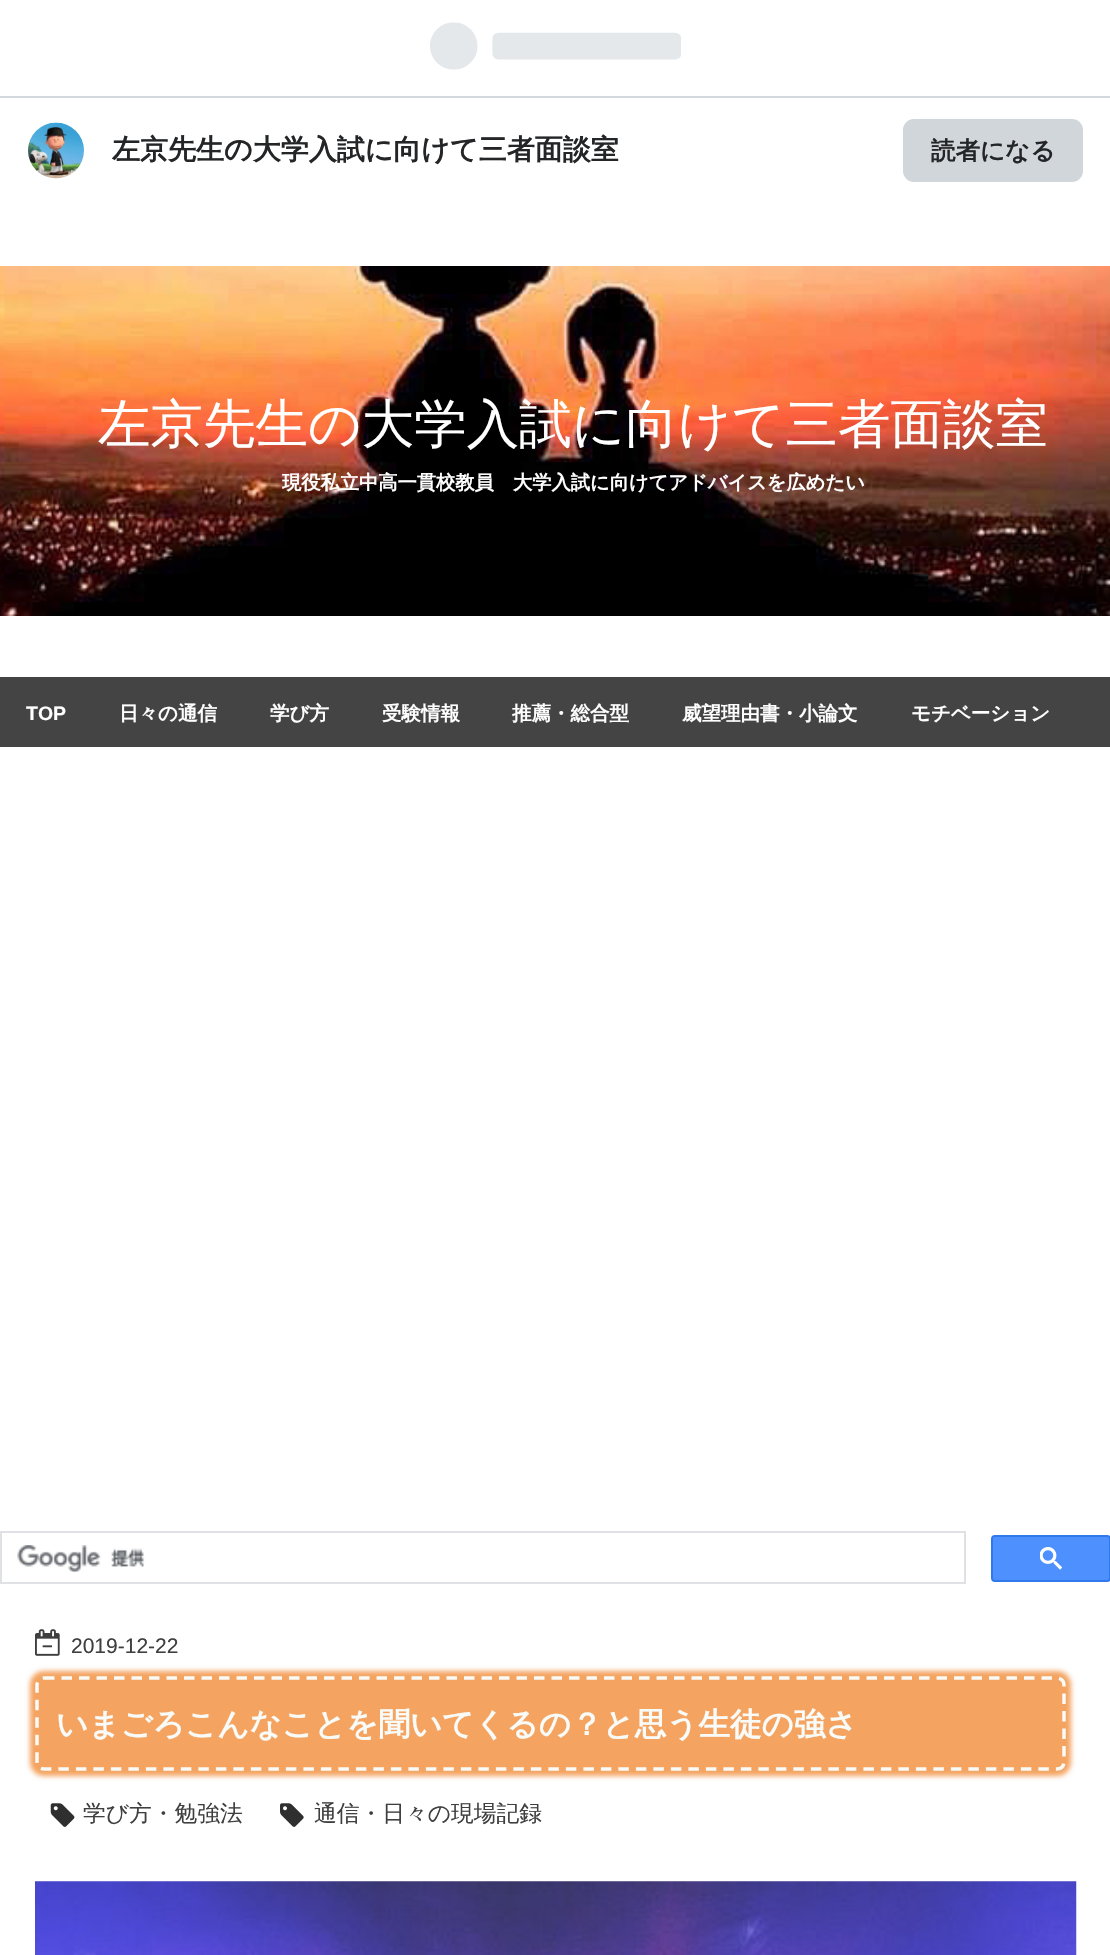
#include "include/core/SkBlurTypes.h"
#include "include/core/SkCanvas.h"
#include "include/core/SkData.h"
#include "include/core/SkFont.h"
#include "include/core/SkFontMgr.h"
#include "include/core/SkImage.h"
#include "include/core/SkMaskFilter.h"
#include "include/core/SkPaint.h"
#include "include/core/SkPathBuilder.h"
#include "include/core/SkTextBlob.h"
#include "include/effects/SkDashPathEffect.h"
#include "include/effects/SkGradientShader.h"
#include "include/utils/SkParsePath.h"

extern sk_sp<SkFontMgr> fontMgr;

void draw(SkCanvas* canvas) {
  SkPaint p;
  p.setAntiAlias(true);
  canvas->clear(SK_ColorWHITE);
  p.setColor(SkColorSetRGB(210, 216, 221));
  canvas->drawRect(SkRect::MakeLTRB(0, 96, 1110, 98), p);
  canvas->drawImageRect(SkImages::DeferredFromEncodedData(SkData::MakeFromFileName("images/1.png")), SkRect::MakeLTRB(430, 22, 681, 70), SkSamplingOptions());
  canvas->drawImageRect(SkImages::DeferredFromEncodedData(SkData::MakeFromFileName("images/2.png")), SkRect::MakeLTRB(28, 122, 84, 179), SkSamplingOptions());
  p.setColor(SkColorSetRGB(209, 214, 218));
  canvas->drawRoundRect(SkRect::MakeLTRB(903, 119, 1083, 182), 11, 11, p);
  canvas->drawImageRect(SkImages::DeferredFromEncodedData(SkData::MakeFromFileName("images/3.png")), SkRect::MakeLTRB(0, 266, 1110, 616), SkSamplingOptions());
  p.setColor(SkColorSetRGB(68, 68, 68));
  canvas->drawRect(SkRect::MakeLTRB(0, 677, 1110, 747), p);
  p.setStyle(SkPaint::kStroke_Style);
  p.setStrokeWidth(2);
  p.setColor(SkColorSetRGB(223, 225, 229));
  canvas->drawRect(SkRect::MakeLTRB(1, 1532, 965, 1583), p);
  canvas->drawImageRect(SkImages::DeferredFromEncodedData(SkData::MakeFromFileName("images/4.png")), SkRect::MakeLTRB(17, 1545, 145, 1572), SkSamplingOptions());
  p.setStyle(SkPaint::kFill_Style);
  p.setColor(SkColorSetRGB(77, 144, 254));
  canvas->drawRoundRect(SkRect::MakeLTRB(992, 1536, 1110, 1581), 3, 3, p);
  p.setStyle(SkPaint::kStroke_Style);
  p.setColor(SkColorSetRGB(48, 121, 237));
  canvas->drawRoundRect(SkRect::MakeLTRB(992, 1536, 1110, 1581), 3, 3, p);
  canvas->drawImageRect(SkImages::DeferredFromEncodedData(SkData::MakeFromFileName("images/5.png")), SkRect::MakeLTRB(1040, 1547, 1062, 1570), SkSamplingOptions());
  canvas->drawImageRect(SkImages::DeferredFromEncodedData(SkData::MakeFromFileName("images/6.png")), SkRect::MakeLTRB(35, 1629, 60, 1656), SkSamplingOptions());
  p.setStyle(SkPaint::kFill_Style);
  p.setColor(SkColorSetRGB(244, 164, 96));
  p.setMaskFilter(SkMaskFilter::MakeBlur(kNormal_SkBlurStyle, 2.5f));
  canvas->drawRoundRect(SkRect::MakeLTRB(30, 1671, 1071, 1776), 14, 14, p);
  p.setMaskFilter(nullptr);
  canvas->drawRoundRect(SkRect::MakeLTRB(35, 1677, 1066, 1771), 9, 9, p);
  p.setStyle(SkPaint::kStroke_Style);
  p.setStrokeWidth(3.5f);
  p.setColor(SkColorSetRGB(248, 251, 248));
  p.setPathEffect(SkDashPathEffect::Make({{10.5f, 7}}, 0));
  canvas->drawPath(SkPathBuilder().moveTo(44, 1678).lineTo(1057, 1678).cubicTo(1061, 1678, 1064, 1681.5f, 1064, 1685).lineTo(1064, 1762).cubicTo(1064, 1766, 1061, 1769, 1057, 1769).lineTo(44, 1769).cubicTo(40, 1769, 37, 1766, 37, 1762).lineTo(37, 1685).cubicTo(37, 1681.5f, 40, 1678, 44, 1678).close().detach(), p);
  p.setPathEffect(nullptr);
  canvas->drawImageRect(SkImages::DeferredFromEncodedData(SkData::MakeFromFileName("images/7.png")), SkRect::MakeLTRB(50, 1803, 75, 1827), SkSamplingOptions());
  canvas->drawImageRect(SkImages::DeferredFromEncodedData(SkData::MakeFromFileName("images/8.png")), SkRect::MakeLTRB(280, 1803, 304, 1827), SkSamplingOptions());
  canvas->drawImageRect(SkImages::DeferredFromEncodedData(SkData::MakeFromFileName("images/9.png")), SkRect::MakeLTRB(35, 1881, 1077, 1955), SkSamplingOptions());
  SkFont font1(fontMgr->matchFamilyStyle("WenQuanYi Zen Hei", SkFontStyle::Bold()), 28);
  font1.setSubpixel(true);
  p.setStyle(SkPaint::kFill_Style);
  p.setColor(SkColorSetRGB(36, 37, 39));
  canvas->drawString("左京先生の大学入試に向けて三者面談室", 112, 159, font1, p);
  SkFont font2(fontMgr->matchFamilyStyle("WenQuanYi Zen Hei", SkFontStyle::Bold()), 24.5f);
  font2.setSubpixel(true);
  canvas->drawString("読者になる", 931, 159, font2, p);
  SkFont font3(fontMgr->matchFamilyStyle("WenQuanYi Zen Hei", SkFontStyle(500, SkFontStyle::kNormal_Width, SkFontStyle::kUpright_Slant)), 52.5f);
  font3.setSubpixel(true);
  p.setColor(SK_ColorWHITE);
  canvas->drawString("左京先生の大学入試に向けて三者面談室", 98, 442, font3, p);
  SkFont font4(fontMgr->matchFamilyStyle("WenQuanYi Zen Hei", SkFontStyle::Bold()), 19.25f);
  font4.setSubpixel(true);
  canvas->drawString("現役私立中高一貫校教員　大学入試に向けてアドバイスを広めたい", 282, 489, font4, p);
  SkFont font5(fontMgr->matchFamilyStyle("Liberation Sans", SkFontStyle::Bold()), 19.5f);
  font5.setSubpixel(true);
  canvas->drawString("TOP", 26, 720, font5, p);
  SkFont font6(fontMgr->matchFamilyStyle("WenQuanYi Zen Hei", SkFontStyle::Bold()), 19.5f);
  font6.setSubpixel(true);
  canvas->drawString("日々の通信", 119, 720, font6, p);
  canvas->drawString("学び方", 270, 720, font6, p);
  canvas->drawString("受験情報", 382, 720, font6, p);
  canvas->drawString("推薦・総合型", 512, 720, font6, p);
  canvas->drawString("威望理由書・小論文", 682, 720, font6, p);
  canvas->drawString("モチベーション", 911, 720, font6, p);
  SkFont font7(fontMgr->matchFamilyStyle("Liberation Sans", SkFontStyle::Normal()), 21);
  font7.setSubpixel(true);
  p.setColor(SkColorSetRGB(63, 63, 63));
  canvas->drawString("2019-12-22", 71, 1653, font7, p);
  SkFont font8(fontMgr->matchFamilyStyle("WenQuanYi Zen Hei", SkFontStyle::Bold()), 31.5f);
  font8.setSubpixel(true);
  p.setColor(SkColorSetRGB(248, 251, 248));
  canvas->drawString("いまごろこんなことを聞いてくるの？と思う生徒の強さ", 56, 1735, font8, p);
  SkFont font9(fontMgr->matchFamilyStyle("WenQuanYi Zen Hei", SkFontStyle(500, SkFontStyle::kNormal_Width, SkFontStyle::kUpright_Slant)), 22.75f);
  font9.setSubpixel(true);
  p.setColor(SkColorSetRGB(63, 63, 63));
  canvas->drawString("学び方・勉強法", 83, 1821, font9, p);
  canvas->drawString("通信・日々の現場記録", 314, 1821, font9, p);
}
